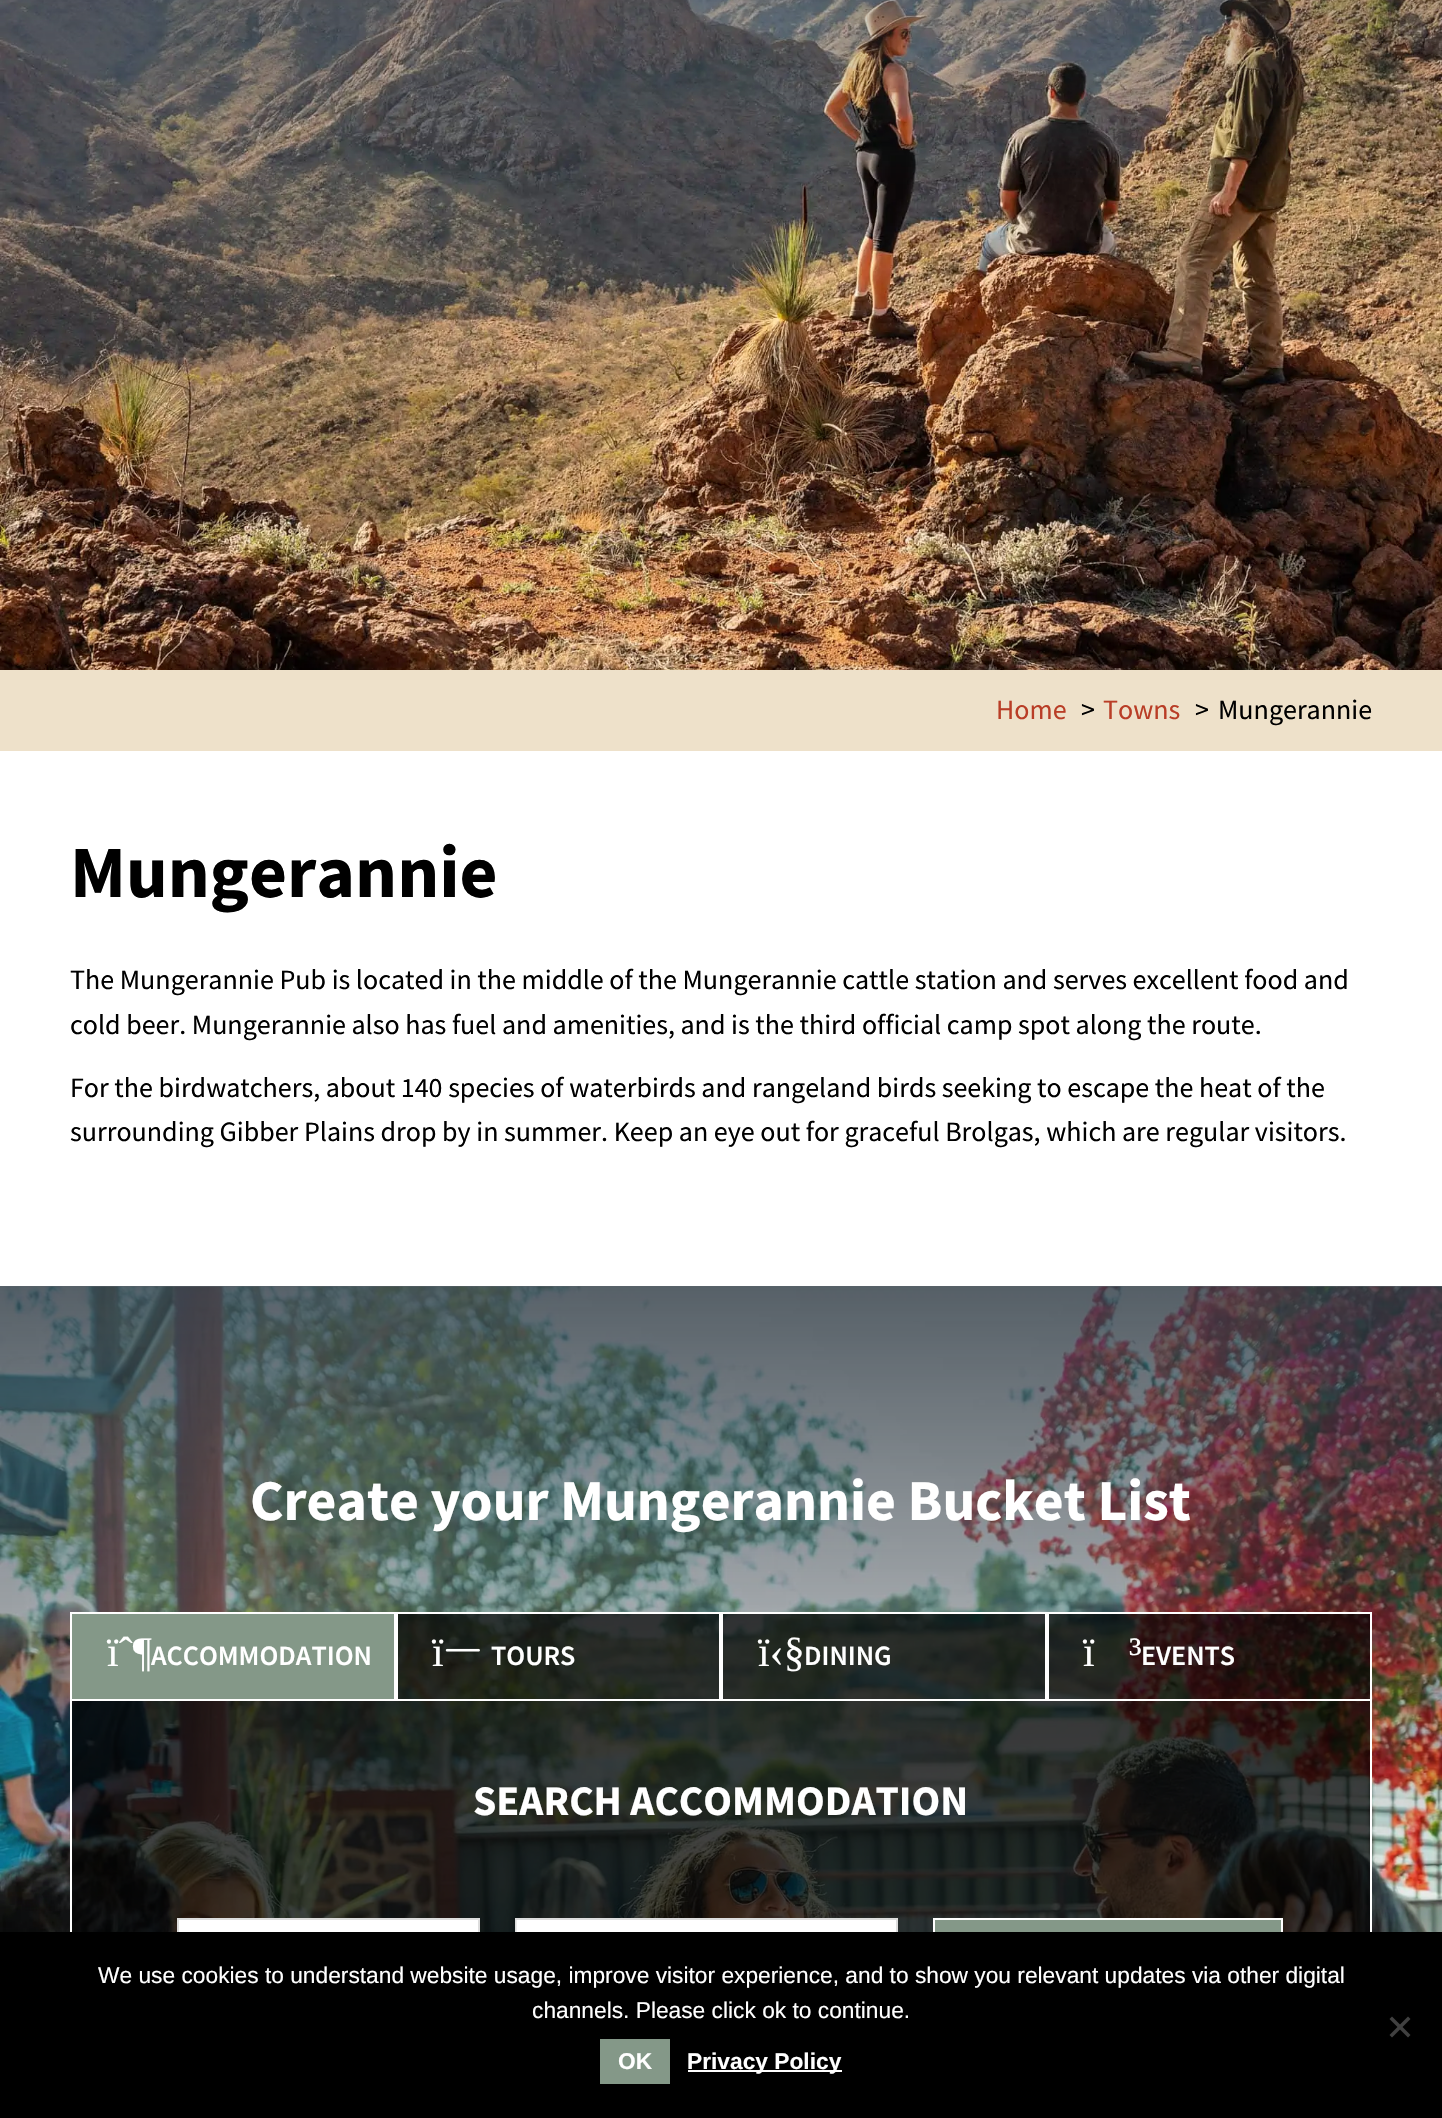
#include "include/core/SkBlurTypes.h"
#include "include/core/SkCanvas.h"
#include "include/core/SkData.h"
#include "include/core/SkFont.h"
#include "include/core/SkFontMgr.h"
#include "include/core/SkImage.h"
#include "include/core/SkMaskFilter.h"
#include "include/core/SkPaint.h"
#include "include/core/SkPathBuilder.h"
#include "include/core/SkTextBlob.h"
#include "include/effects/SkDashPathEffect.h"
#include "include/effects/SkGradientShader.h"
#include "include/utils/SkParsePath.h"

extern sk_sp<SkFontMgr> fontMgr;

void draw(SkCanvas* canvas) {
  SkPaint p;
  p.setAntiAlias(true);
  canvas->clear(SK_ColorWHITE);
  canvas->drawImageRect(SkImages::DeferredFromEncodedData(SkData::MakeFromFileName("images/1.png")), SkRect::MakeLTRB(0, 0, 1442, 670), SkSamplingOptions());
  p.setColor(SkColorSetRGB(238, 225, 202));
  canvas->drawRect(SkRect::MakeLTRB(0, 670, 1442, 751), p);
  canvas->drawImageRect(SkImages::DeferredFromEncodedData(SkData::MakeFromFileName("images/2.png")), SkRect::MakeLTRB(0, 1286, 1442, 1932), SkSamplingOptions());
  {
    const SkColor colors[] = {SkColorSetARGB(207, 51, 63, 72), SkColorSetARGB(0, 51, 63, 72)};
    const float stops[] = {0, 0.6f};
    const SkPoint ends[] = {{721, 1286}, {721, 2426}};
    p.setShader(SkGradientShader::MakeLinear(ends, colors, stops, 2, SkTileMode::kClamp));
    p.setAlpha(255);
  }
  canvas->drawRect(SkRect::MakeLTRB(0, 1286, 1442, 1932), p);
  p.setShader(nullptr);
  p.setColor(SkColorSetRGB(132, 152, 136));
  canvas->drawRect(SkRect::MakeLTRB(71, 1613, 395, 1700), p);
  p.setStyle(SkPaint::kStroke_Style);
  p.setStrokeWidth(2);
  p.setColor(SK_ColorWHITE);
  canvas->drawRect(SkRect::MakeLTRB(71, 1613, 395, 1700), p);
  p.setStyle(SkPaint::kFill_Style);
  p.setColor(SkColorSetARGB(181, 0, 0, 0));
  canvas->drawRect(SkRect::MakeLTRB(397, 1613, 720, 1700), p);
  p.setStyle(SkPaint::kStroke_Style);
  p.setColor(SK_ColorWHITE);
  canvas->drawRect(SkRect::MakeLTRB(397, 1613, 720, 1700), p);
  canvas->drawImageRect(SkImages::DeferredFromEncodedData(SkData::MakeFromFileName("images/3.png")), SkRect::MakeLTRB(445, 1648, 480, 1652), SkSamplingOptions());
  p.setStyle(SkPaint::kFill_Style);
  p.setColor(SkColorSetARGB(181, 0, 0, 0));
  canvas->drawRect(SkRect::MakeLTRB(722, 1613, 1046, 1700), p);
  p.setStyle(SkPaint::kStroke_Style);
  p.setColor(SK_ColorWHITE);
  canvas->drawRect(SkRect::MakeLTRB(722, 1613, 1046, 1700), p);
  p.setStyle(SkPaint::kFill_Style);
  p.setColor(SkColorSetARGB(181, 0, 0, 0));
  canvas->drawRect(SkRect::MakeLTRB(1048, 1613, 1371, 1700), p);
  p.setStyle(SkPaint::kStroke_Style);
  p.setColor(SK_ColorWHITE);
  canvas->drawRect(SkRect::MakeLTRB(1048, 1613, 1371, 1700), p);
  p.setStyle(SkPaint::kFill_Style);
  canvas->drawRect(SkRect::MakeLTRB(1370, 1701, 1372, 1932), p);
  canvas->drawRect(SkRect::MakeLTRB(70, 1701, 72, 1932), p);
  p.setColor(SkColorSetARGB(181, 0, 0, 0));
  canvas->drawRect(SkRect::MakeLTRB(72, 1701, 1370, 1932), p);
  p.setColor(SK_ColorWHITE);
  canvas->drawRect(SkRect::MakeLTRB(179, 1920, 478, 1932), p);
  p.setStyle(SkPaint::kStroke_Style);
  p.setColor(SkColorSetRGB(221, 221, 221));
  canvas->drawRect(SkRect::MakeLTRB(178, 1919, 479, 1980), p);
  p.setStyle(SkPaint::kFill_Style);
  p.setColor(SK_ColorWHITE);
  canvas->drawRect(SkRect::MakeLTRB(517, 1920, 896, 1932), p);
  p.setStyle(SkPaint::kStroke_Style);
  p.setColor(SkColorSetRGB(221, 221, 221));
  canvas->drawRect(SkRect::MakeLTRB(516, 1919, 897, 1980), p);
  p.setStyle(SkPaint::kFill_Style);
  p.setColor(SkColorSetARGB(102, 255, 255, 255));
  canvas->drawRect(SkRect::MakeLTRB(516, 1920, 517, 1932), p);
  p.setColor(SkColorSetRGB(132, 152, 136));
  canvas->drawRect(SkRect::MakeLTRB(935, 1920, 1281, 1932), p);
  p.setStyle(SkPaint::kStroke_Style);
  p.setColor(SK_ColorWHITE);
  canvas->drawRect(SkRect::MakeLTRB(934, 1919, 1282, 1980), p);
  p.setStyle(SkPaint::kFill_Style);
  p.setColor(SK_ColorBLACK);
  canvas->drawRect(SkRect::MakeLTRB(0, 1932, 1442, 2118), p);
  p.setColor(SkColorSetRGB(64, 64, 64));
  canvas->drawPath(SkPathBuilder().moveTo(1408, 2016.5f).lineTo(1410.5f, 2019).lineTo(1392, 2037.5f).lineTo(1389.5f, 2035).close().detach(), p);
  canvas->drawPath(SkPathBuilder().moveTo(1389.5f, 2019).lineTo(1392, 2016.5f).lineTo(1410.5f, 2035).lineTo(1408, 2037.5f).close().detach(), p);
  p.setColor(SkColorSetRGB(132, 152, 136));
  canvas->drawRect(SkRect::MakeLTRB(600, 2039, 670, 2084), p);
  p.setColor(SK_ColorWHITE);
  canvas->drawRect(SkRect::MakeLTRB(688, 2070, 842, 2072), p);
  SkFont font1(fontMgr->matchFamilyStyle("Source Sans Pro", SkFontStyle::Normal()), 28);
  font1.setSubpixel(true);
  p.setColor(SkColorSetRGB(185, 61, 38));
  canvas->drawString("Home", 996, 719, font1, p);
  p.setColor(SK_ColorBLACK);
  canvas->drawString(">", 1081, 719, font1, p);
  p.setColor(SkColorSetRGB(185, 61, 38));
  canvas->drawString("Towns", 1103, 719, font1, p);
  p.setColor(SK_ColorBLACK);
  canvas->drawString(">", 1195, 719, font1, p);
  canvas->drawString("Mungerannie", 1218, 719, font1, p);
  SkFont font2(fontMgr->matchFamilyStyle("Source Sans Pro", SkFontStyle::Bold()), 73.5f);
  font2.setSubpixel(true);
  canvas->drawString("Mungerannie", 70, 897, font2, p);
  canvas->drawString("The Mungerannie Pub is located in the middle of the Mungerannie cattle station and serves excellent food and", 70, 989, font1, p);
  canvas->drawString("cold beer. Mungerannie also has fuel and amenities, and is the third official camp spot along the route.", 70, 1034, font1, p);
  canvas->drawString("For the birdwatchers, about 140 species of waterbirds and rangeland birds seeking to escape the heat of the", 70, 1097, font1, p);
  canvas->drawString("surrounding Gibber Plains drop by in summer. Keep an eye out for graceful Brolgas, which are regular visitors.", 70, 1141, font1, p);
  SkFont font3(fontMgr->matchFamilyStyle("Source Sans Pro", SkFontStyle::Bold()), 57.75f);
  font3.setSubpixel(true);
  p.setColor(SK_ColorWHITE);
  canvas->drawString("Create your Mungerannie Bucket List", 250, 1520, font3, p);
  SkFont font4(fontMgr->matchFamilyStyle("Liberation Serif", SkFontStyle::Normal()), 42);
  font4.setSubpixel(true);
  canvas->drawString("ïˆ¶", 107, 1666, font4, p);
  SkFont font5(fontMgr->matchFamilyStyle("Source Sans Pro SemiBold", SkFontStyle(600, SkFontStyle::kNormal_Width, SkFontStyle::kUpright_Slant)), 28);
  font5.setSubpixel(true);
  canvas->drawString("ACCOMMODATION", 151, 1665, font5, p);
  canvas->drawString("ï", 432, 1666, font4, p);
  canvas->drawString("TOURS", 491, 1665, font5, p);
  canvas->drawString("ï‹§", 758, 1666, font4, p);
  canvas->drawString("DINING", 804, 1665, font5, p);
  canvas->drawString("ï", 1083, 1666, font4, p);
  canvas->drawString("³", 1129, 1666, font4, p);
  canvas->drawString("EVENTS", 1141, 1665, font5, p);
  SkFont font6(fontMgr->matchFamilyStyle("Source Sans Pro", SkFontStyle::Bold()), 42);
  font6.setSubpixel(true);
  canvas->drawString("SEARCH ACCOMMODATION", 473, 1815, font6, p);
  SkFont font7(fontMgr->matchFamilyStyle("Liberation Sans", SkFontStyle::Normal()), 22.75f);
  font7.setSubpixel(true);
  canvas->drawString("We use cookies to understand website usage, improve visitor experience, and to show you relevant updates via other digital", 98, 1983, font7, p);
  canvas->drawString("channels. Please click ok to continue.", 532, 2018, font7, p);
  SkFont font8(fontMgr->matchFamilyStyle("Liberation Sans", SkFontStyle::Bold()), 22.75f);
  font8.setSubpixel(true);
  canvas->drawString("OK", 618, 2069, font8, p);
  canvas->drawString("Privacy Policy", 687, 2069, font8, p);
}
